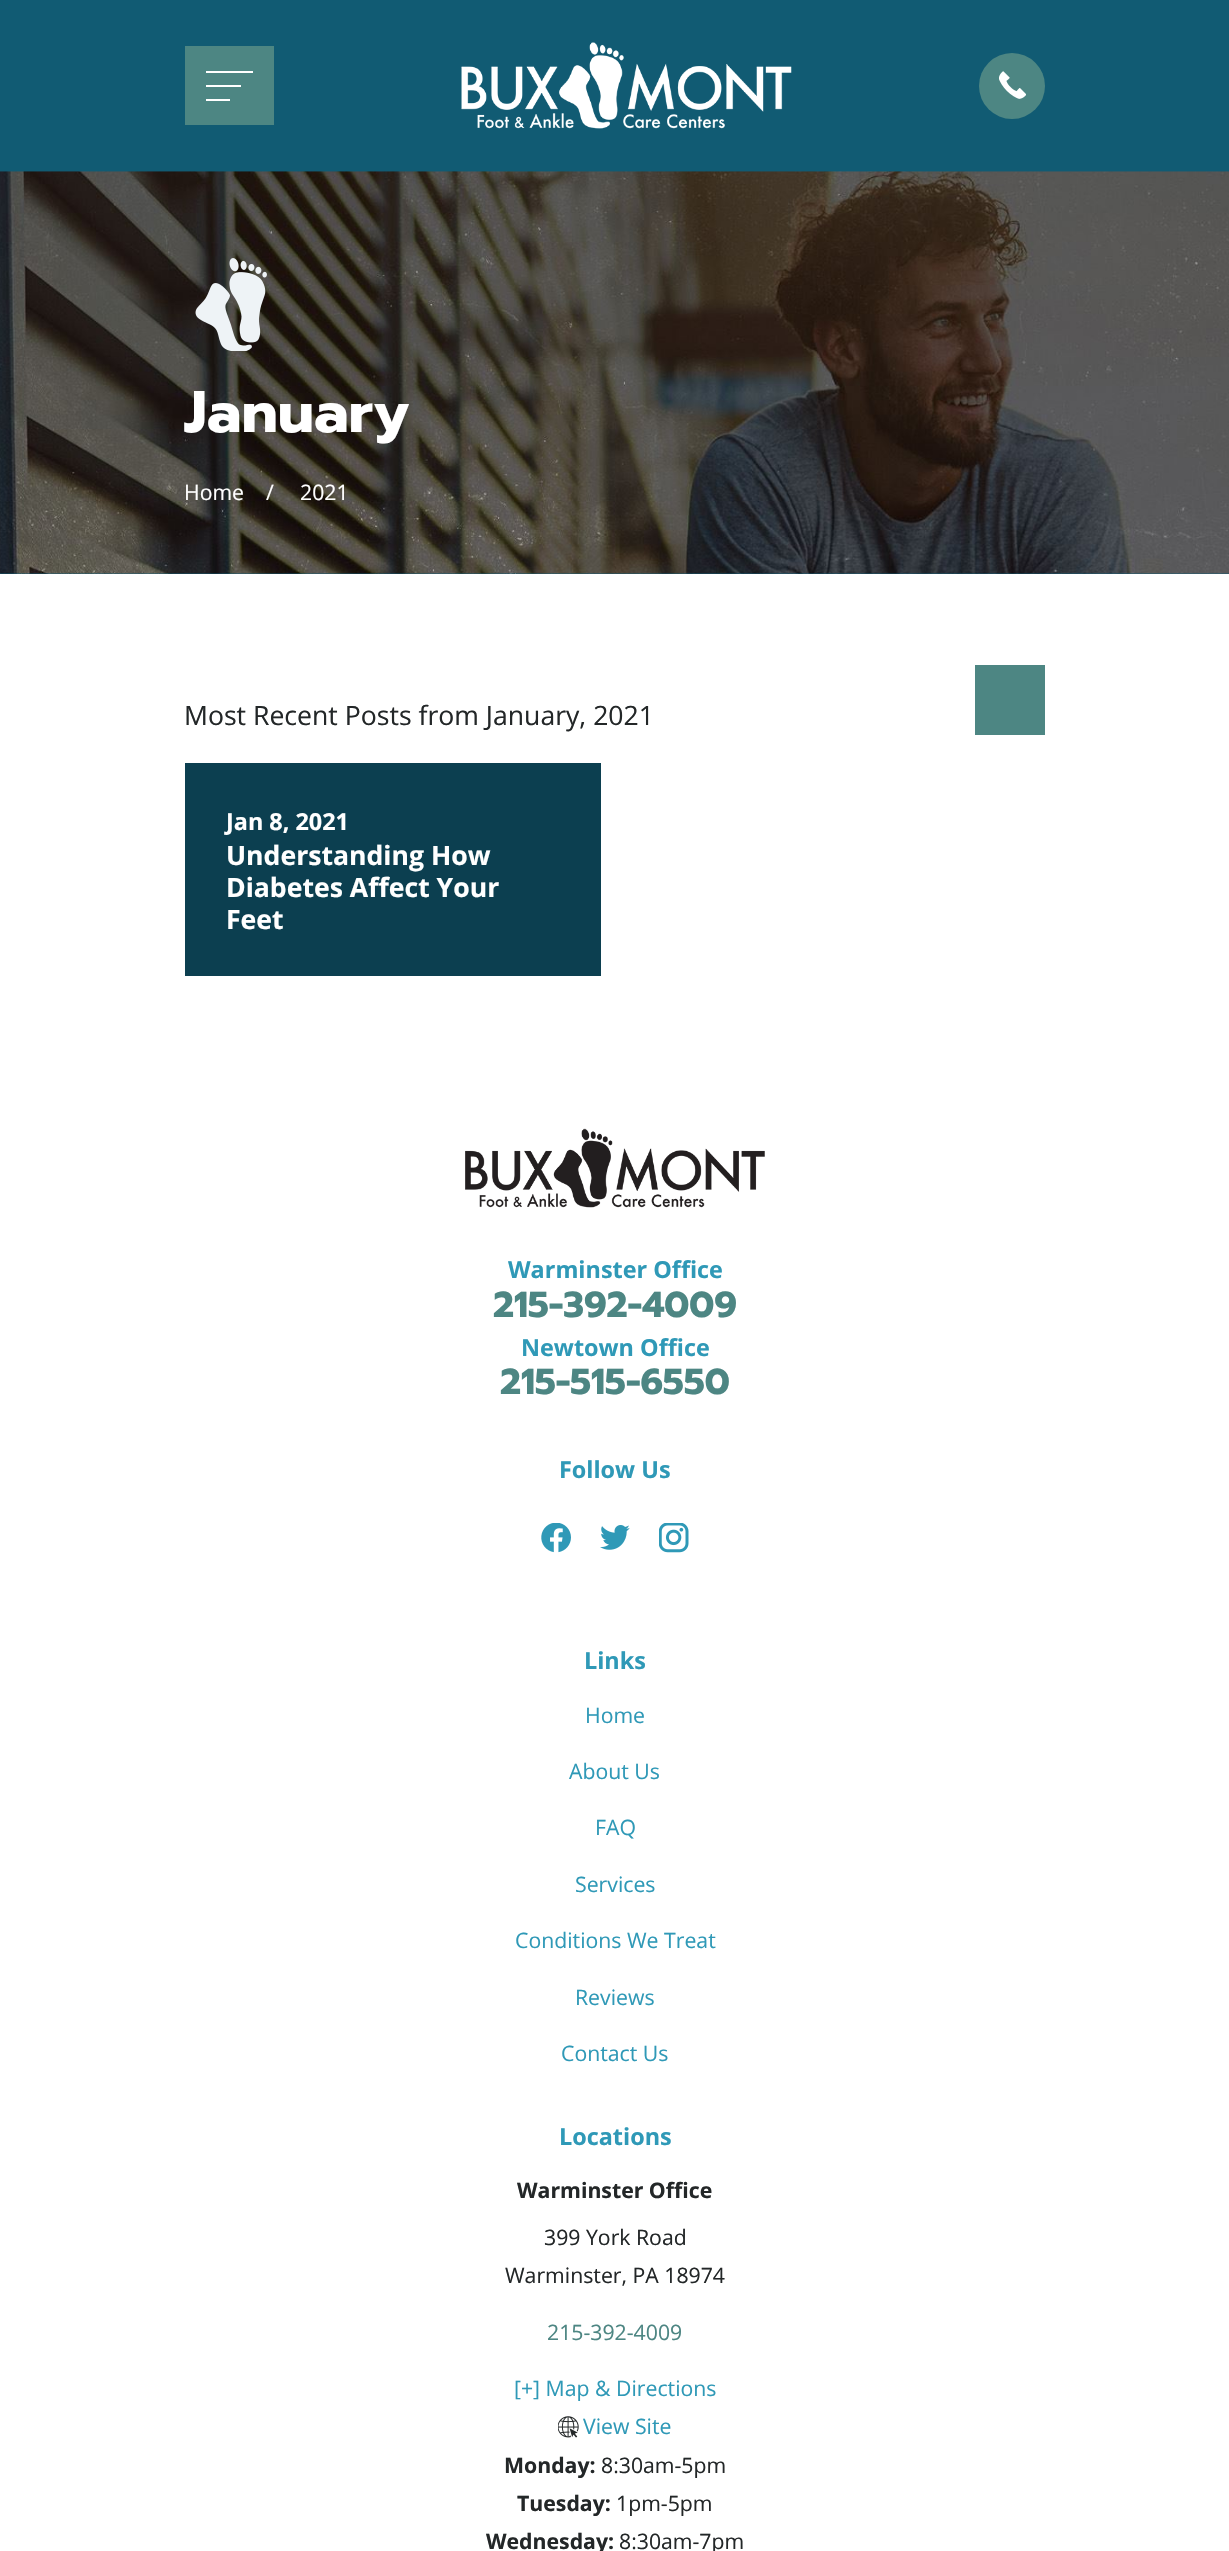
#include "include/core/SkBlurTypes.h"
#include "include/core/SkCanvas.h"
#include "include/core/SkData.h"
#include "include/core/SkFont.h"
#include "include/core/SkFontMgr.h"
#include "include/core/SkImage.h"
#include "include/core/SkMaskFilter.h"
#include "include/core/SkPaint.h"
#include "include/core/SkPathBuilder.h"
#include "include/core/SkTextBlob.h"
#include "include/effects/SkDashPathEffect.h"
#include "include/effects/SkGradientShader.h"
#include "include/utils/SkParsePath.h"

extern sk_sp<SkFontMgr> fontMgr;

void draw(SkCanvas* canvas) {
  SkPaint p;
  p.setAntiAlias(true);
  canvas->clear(SK_ColorWHITE);
  p.setColor(SkColorSetRGB(17, 91, 115));
  canvas->drawRect(SkRect::MakeLTRB(0, 0, 1229, 574), p);
  p.setColor(SkColorSetRGB(77, 134, 131));
  canvas->drawRect(SkRect::MakeLTRB(185, 46, 274, 125), p);
  p.setColor(SK_ColorWHITE);
  canvas->drawPath(SkPathBuilder().moveTo(206, 101).lineTo(206, 99).lineTo(230, 99).lineTo(230, 101).close().moveTo(206, 87).lineTo(206, 85).lineTo(241, 85).lineTo(241, 87).close().moveTo(206, 73).lineTo(206, 71).lineTo(253, 71).lineTo(253, 73).close().detach(), p);
  canvas->drawImageRect(SkImages::DeferredFromEncodedData(SkData::MakeFromFileName("images/1.png")), SkRect::MakeLTRB(461, 42, 792, 129), SkSamplingOptions());
  p.setColor(SkColorSetRGB(77, 134, 131));
  canvas->drawCircle(1012, 86, 33, p);
  canvas->drawImageRect(SkImages::DeferredFromEncodedData(SkData::MakeFromFileName("images/2.png")), SkRect::MakeLTRB(999, 71, 1026, 99), SkSamplingOptions());
  canvas->drawImageRect(SkImages::DeferredFromEncodedData(SkData::MakeFromFileName("images/3.png")), SkRect::MakeLTRB(0, 171, 1229, 574), SkSamplingOptions());
  canvas->drawImageRect(SkImages::DeferredFromEncodedData(SkData::MakeFromFileName("images/4.png")), SkRect::MakeLTRB(195, 258, 267, 351), SkSamplingOptions());
  canvas->drawRect(SkRect::MakeLTRB(975, 665, 1045, 735), p);
  p.setColor(SkColorSetRGB(12, 63, 80));
  canvas->drawRect(SkRect::MakeLTRB(185, 763, 601, 976), p);
  canvas->drawImageRect(SkImages::DeferredFromEncodedData(SkData::MakeFromFileName("images/5.png")), SkRect::MakeLTRB(465, 1128, 765, 1208), SkSamplingOptions());
  canvas->drawImageRect(SkImages::DeferredFromEncodedData(SkData::MakeFromFileName("images/6.png")), SkRect::MakeLTRB(541, 1523, 571, 1553), SkSamplingOptions());
  canvas->drawImageRect(SkImages::DeferredFromEncodedData(SkData::MakeFromFileName("images/7.png")), SkRect::MakeLTRB(600, 1525, 630, 1550), SkSamplingOptions());
  canvas->drawImageRect(SkImages::DeferredFromEncodedData(SkData::MakeFromFileName("images/8.png")), SkRect::MakeLTRB(659, 1523, 689, 1553), SkSamplingOptions());
  canvas->drawImageRect(SkImages::DeferredFromEncodedData(SkData::MakeFromFileName("images/9.png")), SkRect::MakeLTRB(558, 2416, 579, 2438), SkSamplingOptions());
  SkFont font1(fontMgr->matchFamilyStyle("Prompt", SkFontStyle::Bold()), 58.5f);
  font1.setSubpixel(true);
  p.setColor(SK_ColorWHITE);
  canvas->drawString("January", 184, 432, font1, p);
  SkFont font2(fontMgr->matchFamilyStyle("Open Sans", SkFontStyle::Normal()), 21.25f);
  font2.setSubpixel(true);
  canvas->drawString("Home", 184, 500, font2, p);
  canvas->drawString("/", 266, 500, font2, p);
  canvas->drawString("2021", 300, 500, font2, p);
  SkFont font3(fontMgr->matchFamilyStyle("Open Sans", SkFontStyle::Normal()), 26.6f);
  font3.setSubpixel(true);
  p.setColor(SkColorSetRGB(35, 39, 40));
  canvas->drawString("Most Recent Posts from January, 2021", 184, 725, font3, p);
  SkFont font4(fontMgr->matchFamilyStyle("Open Sans", SkFontStyle::Bold()), 23.4f);
  font4.setSubpixel(true);
  p.setColor(SK_ColorWHITE);
  canvas->drawString("Jan 8, 2021", 226, 830, font4, p);
  SkFont font5(fontMgr->matchFamilyStyle("Open Sans", SkFontStyle::Bold()), 26.6f);
  font5.setSubpixel(true);
  canvas->drawString("Understanding How", 226, 865, font5, p);
  canvas->drawString("Diabetes Affect Your", 226, 897, font5, p);
  canvas->drawString("Feet", 226, 929, font5, p);
  p.setColor(SkColorSetRGB(47, 153, 183));
  canvas->drawString("Warminster Office", 508, 1278, font4, p);
  SkFont font6(fontMgr->matchFamilyStyle("Prompt", SkFontStyle::Bold()), 36);
  font6.setSubpixel(true);
  p.setColor(SkColorSetRGB(77, 134, 131));
  canvas->drawString("215-392-4009", 493, 1317, font6, p);
  p.setColor(SkColorSetRGB(47, 153, 183));
  canvas->drawString("Newtown Office", 521, 1356, font4, p);
  p.setColor(SkColorSetRGB(77, 134, 131));
  canvas->drawString("215-515-6550", 500, 1394, font6, p);
  p.setColor(SkColorSetRGB(47, 153, 183));
  canvas->drawString("Follow Us", 559, 1478, font4, p);
  canvas->drawString("Links", 584, 1669, font4, p);
  canvas->drawString("Home", 585, 1723, font2, p);
  canvas->drawString("About Us", 569, 1779, font2, p);
  canvas->drawString("FAQ", 595, 1835, font2, p);
  canvas->drawString("Services", 575, 1892, font2, p);
  canvas->drawString("Conditions We Treat", 515, 1948, font2, p);
  canvas->drawString("Reviews", 575, 2005, font2, p);
  canvas->drawString("Contact Us", 561, 2061, font2, p);
  canvas->drawString("Locations", 559, 2145, font4, p);
  SkFont font7(fontMgr->matchFamilyStyle("Open Sans", SkFontStyle::Bold()), 21.25f);
  font7.setSubpixel(true);
  p.setColor(SkColorSetRGB(35, 39, 40));
  canvas->drawString("Warminster Office", 517, 2198, font7, p);
  canvas->drawString("399 York Road", 544, 2245, font2, p);
  canvas->drawString("Warminster, PA 18974", 505, 2283, font2, p);
  p.setColor(SkColorSetRGB(77, 134, 131));
  canvas->drawString("215-392-4009", 547, 2340, font2, p);
  p.setColor(SkColorSetRGB(47, 153, 183));
  canvas->drawString("[+] Map & Directions", 514, 2396, font2, p);
  canvas->drawString("View Site", 583, 2434, font2, p);
  p.setColor(SkColorSetRGB(35, 39, 40));
  canvas->drawString("Monday:", 504, 2473, font7, p);
  canvas->drawString("8:30am-5pm", 601, 2473, font2, p);
  canvas->drawString("Tuesday:", 517, 2511, font7, p);
  canvas->drawString("1pm-5pm", 616, 2511, font2, p);
  canvas->drawString("Wednesday:", 486, 2549, font7, p);
  canvas->drawString("8:30am-7pm", 619, 2549, font2, p);
}
